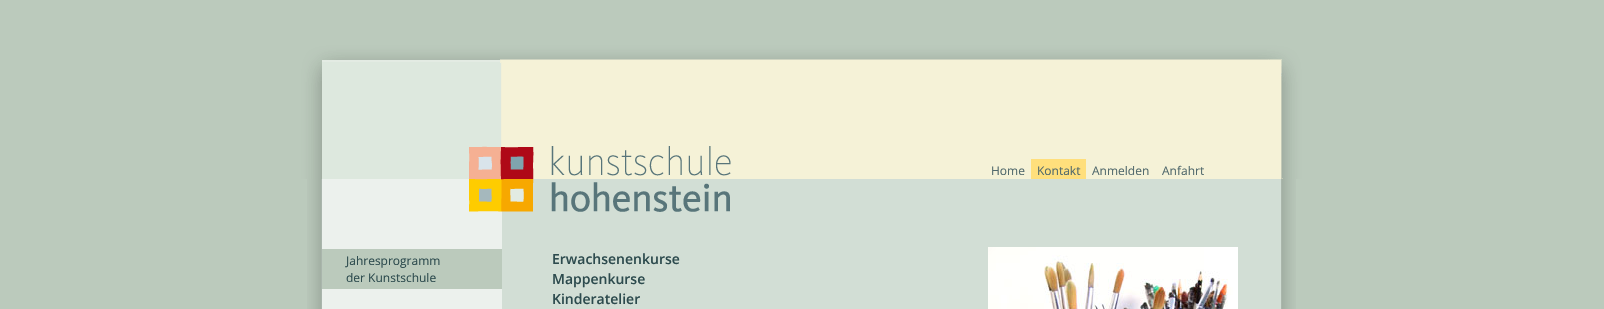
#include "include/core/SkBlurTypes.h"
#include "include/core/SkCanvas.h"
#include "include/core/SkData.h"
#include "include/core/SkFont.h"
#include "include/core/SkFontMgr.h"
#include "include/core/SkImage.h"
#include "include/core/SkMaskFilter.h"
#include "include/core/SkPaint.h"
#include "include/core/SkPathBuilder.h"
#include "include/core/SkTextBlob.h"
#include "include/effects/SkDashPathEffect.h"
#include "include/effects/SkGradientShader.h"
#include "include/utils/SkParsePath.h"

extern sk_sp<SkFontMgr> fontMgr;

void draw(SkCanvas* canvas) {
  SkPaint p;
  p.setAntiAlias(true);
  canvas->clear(SkColorSetRGB(187, 202, 188));
  canvas->drawImageRect(SkImages::DeferredFromEncodedData(SkData::MakeFromFileName("images/1.png")), SkRect::MakeLTRB(299, 40, 1305, 179), SkSamplingOptions());
  canvas->drawImageRect(SkImages::DeferredFromEncodedData(SkData::MakeFromFileName("images/3.png")), SkRect::MakeLTRB(307, 179, 1296, 309), SkSamplingOptions());
  p.setColor(SkColorSetRGB(236, 241, 237));
  canvas->drawRect(SkRect::MakeLTRB(322, 179, 502, 309), p);
  canvas->drawImageRect(SkImages::DeferredFromEncodedData(SkData::MakeFromFileName("images/2.png")), SkRect::MakeLTRB(469, 146, 731, 212), SkSamplingOptions());
  p.setColor(SkColorSetRGB(255, 223, 124));
  canvas->drawRect(SkRect::MakeLTRB(1031, 159, 1086, 179), p);
  p.setColor(SkColorSetRGB(187, 202, 188));
  canvas->drawRect(SkRect::MakeLTRB(322, 249, 502, 289), p);
  canvas->drawImageRect(SkImages::DeferredFromEncodedData(SkData::MakeFromFileName("images/4.png")), SkRect::MakeLTRB(988, 247, 1238, 309), SkSamplingOptions());
  SkFont font1(fontMgr->matchFamilyStyle("Open Sans", SkFontStyle::Normal()), 12);
  font1.setSubpixel(true);
  p.setColor(SkColorSetRGB(81, 105, 108));
  canvas->drawString("Home", 991, 175, font1, p);
  canvas->drawString("Kontakt", 1037, 175, font1, p);
  canvas->drawString("Anmelden", 1092, 175, font1, p);
  canvas->drawString("Anfahrt", 1162, 175, font1, p);
  p.setColor(SkColorSetRGB(45, 75, 78));
  canvas->drawString("Jahresprogramm", 346, 265, font1, p);
  canvas->drawString("der Kunstschule", 346, 282, font1, p);
  SkFont font2(fontMgr->matchFamilyStyle("Open Sans", SkFontStyle(600, SkFontStyle::kNormal_Width, SkFontStyle::kUpright_Slant)), 14);
  font2.setSubpixel(true);
  canvas->drawString("Erwachsenenkurse", 552, 264, font2, p);
  canvas->drawString("Mappenkurse", 552, 284, font2, p);
  canvas->drawString("Kinderatelier", 552, 304, font2, p);
}
